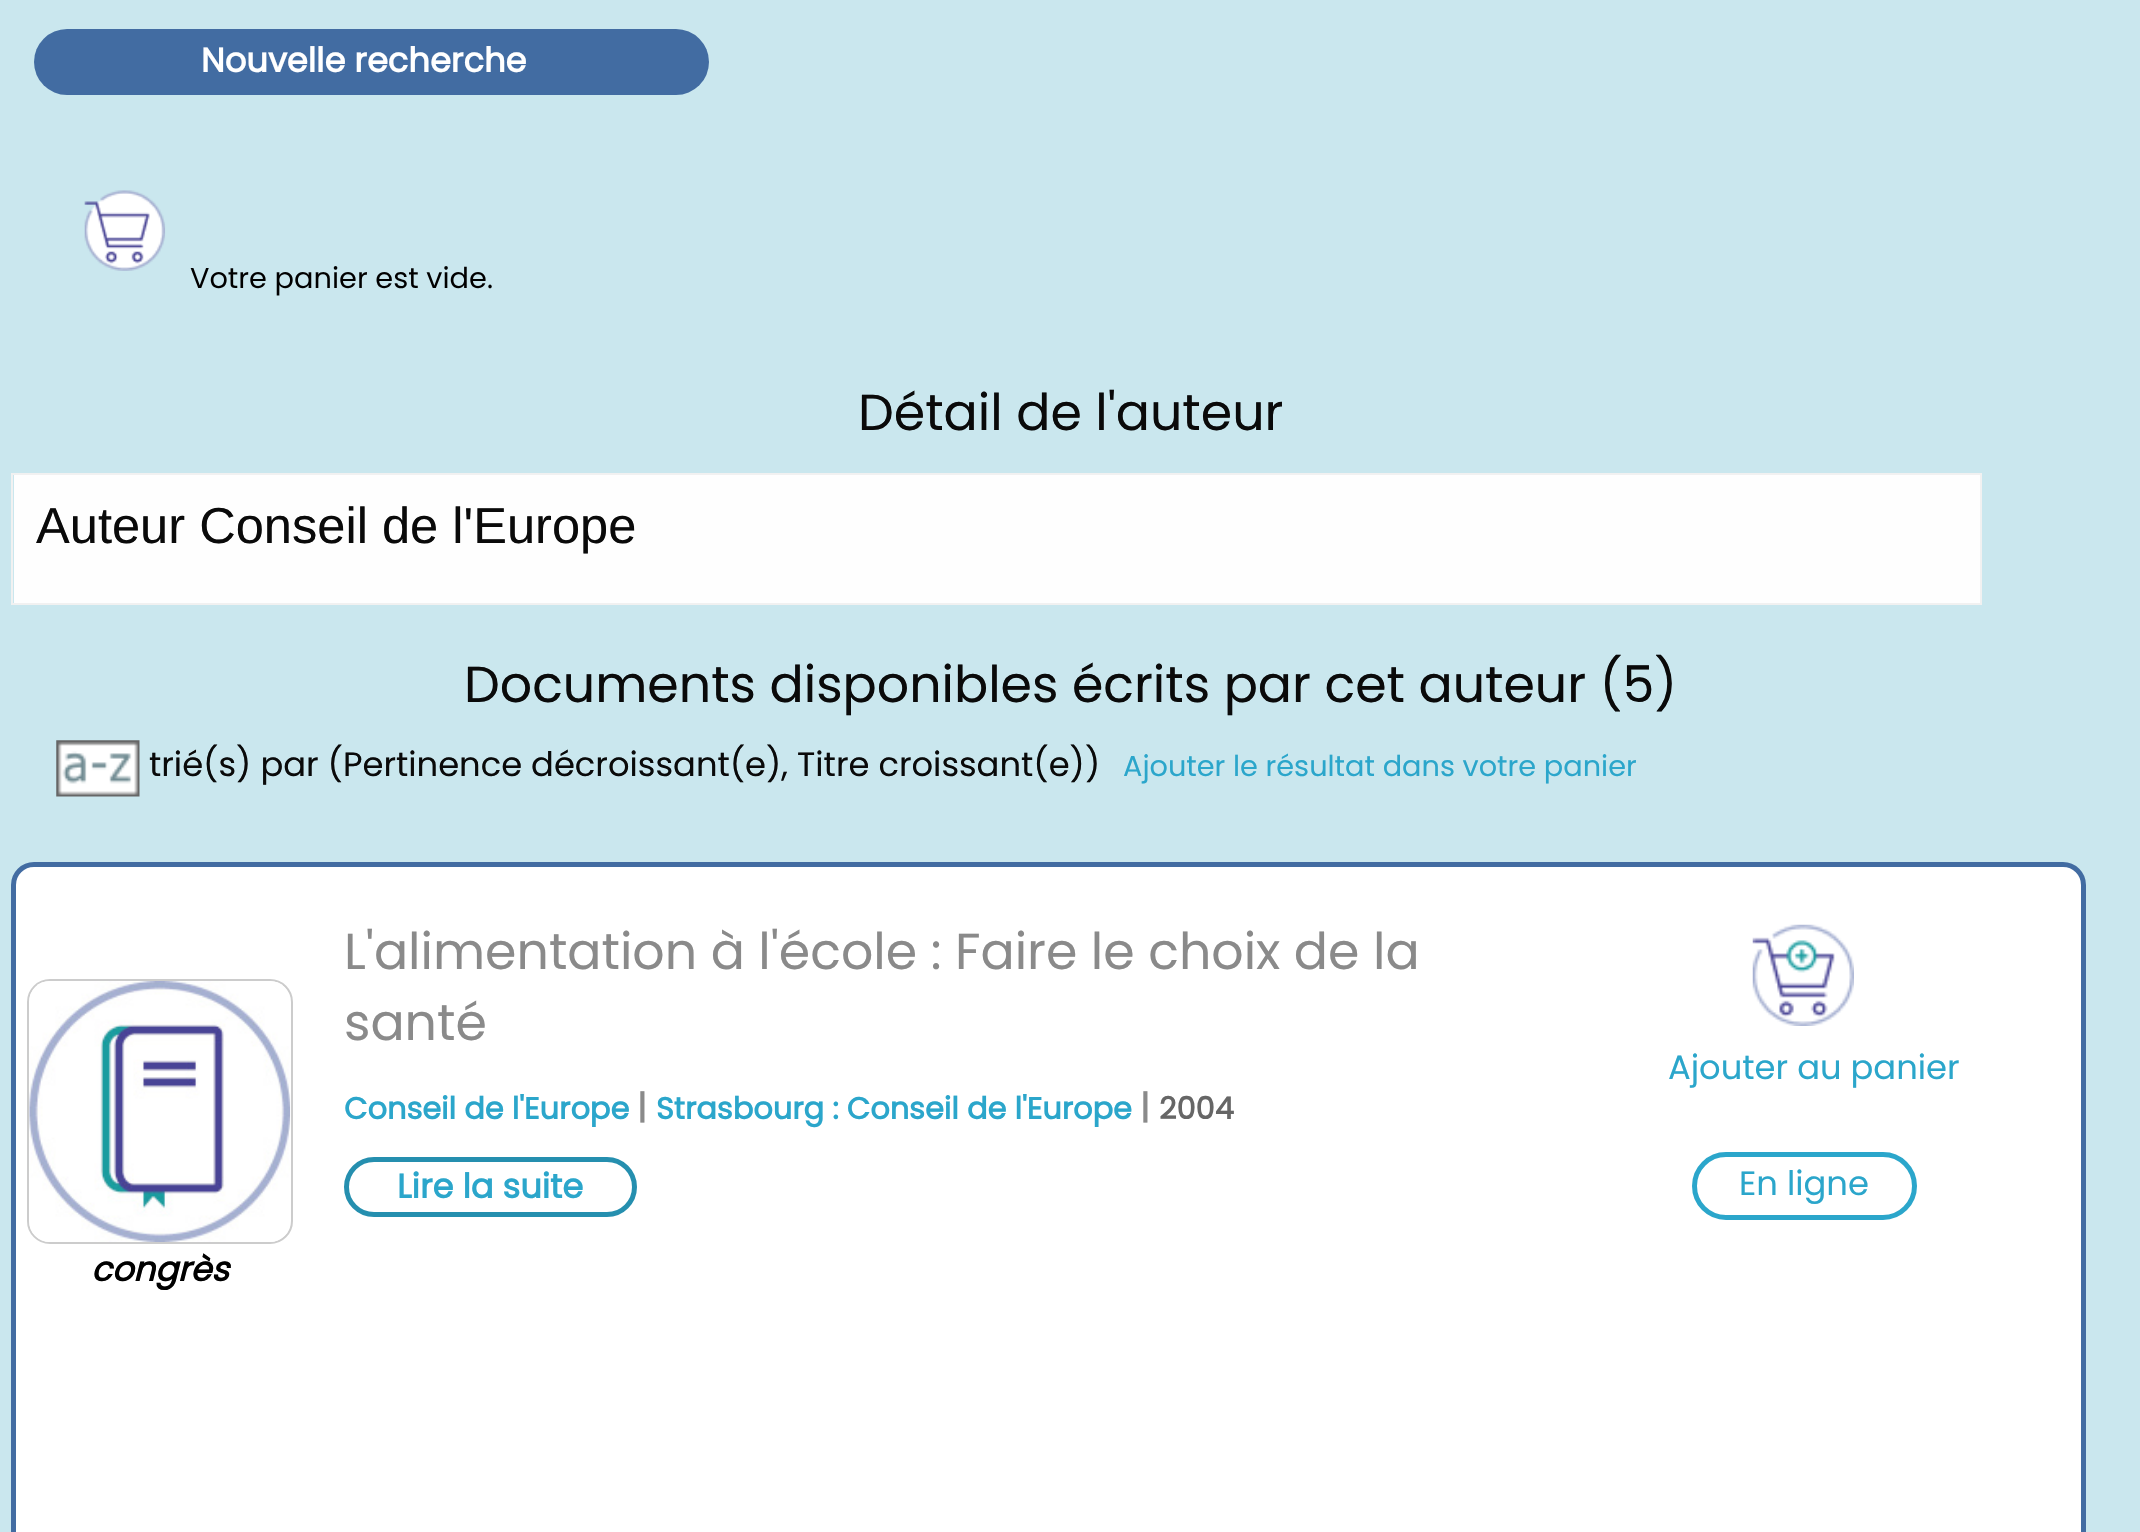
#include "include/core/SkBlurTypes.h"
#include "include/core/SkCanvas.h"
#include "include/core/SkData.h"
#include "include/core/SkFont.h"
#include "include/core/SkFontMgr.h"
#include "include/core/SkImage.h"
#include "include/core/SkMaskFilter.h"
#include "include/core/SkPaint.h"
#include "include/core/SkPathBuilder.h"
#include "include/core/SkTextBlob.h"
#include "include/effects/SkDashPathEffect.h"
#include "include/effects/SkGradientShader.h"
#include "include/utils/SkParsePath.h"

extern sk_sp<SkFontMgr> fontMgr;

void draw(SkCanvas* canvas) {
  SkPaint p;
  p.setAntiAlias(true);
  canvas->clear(SkColorSetRGB(202, 231, 238));
  p.setColor(SkColorSetRGB(66, 108, 162));
  canvas->drawRoundRect(SkRect::MakeLTRB(34, 29, 709, 95), 33, 33, p);
  canvas->drawImageRect(SkImages::DeferredFromEncodedData(SkData::MakeFromFileName("images/1.png")), SkRect::MakeLTRB(84, 190, 492, 296), SkSamplingOptions());
  p.setColor(SkColorSetRGB(254, 254, 254));
  canvas->drawRect(SkRect::MakeLTRB(14, 475, 1980, 603), p);
  p.setColor(SkColorSetRGB(241, 241, 241));
  canvas->drawRect(SkRect::MakeLTRB(11, 473, 1982, 475), p);
  canvas->drawRect(SkRect::MakeLTRB(1980, 473, 1982, 605), p);
  canvas->drawRect(SkRect::MakeLTRB(11, 603, 1982, 605), p);
  canvas->drawRect(SkRect::MakeLTRB(11, 473, 13, 605), p);
  canvas->drawImageRect(SkImages::DeferredFromEncodedData(SkData::MakeFromFileName("images/2.png")), SkRect::MakeLTRB(56, 740, 140, 797), SkSamplingOptions());
  p.setColor(SK_ColorWHITE);
  canvas->drawRoundRect(SkRect::MakeLTRB(13.5f, 864.5f, 2083.5f, 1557.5f), 20.5f, 20.5f, p);
  p.setStyle(SkPaint::kStroke_Style);
  p.setStrokeWidth(5);
  p.setColor(SkColorSetRGB(66, 108, 162));
  canvas->drawRoundRect(SkRect::MakeLTRB(13.5f, 864.5f, 2083.5f, 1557.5f), 20.5f, 20.5f, p);
  p.setColor(SkColorSetRGB(37, 143, 175));
  canvas->drawRoundRect(SkRect::MakeLTRB(346.5f, 1159.5f, 634.5f, 1214.5f), 27.5f, 27.5f, p);
  canvas->drawImageRect(SkImages::DeferredFromEncodedData(SkData::MakeFromFileName("images/3.png")), SkRect::MakeLTRB(1752, 924, 1854, 1026), SkSamplingOptions());
  p.setColor(SkColorSetRGB(43, 166, 203));
  canvas->drawRoundRect(SkRect::MakeLTRB(1694.5f, 1154.5f, 1914.5f, 1217.5f), 31.5f, 31.5f, p);
  p.setStrokeWidth(2);
  p.setColor(SkColorSetRGB(204, 204, 204));
  canvas->drawRoundRect(SkRect::MakeLTRB(28, 980, 292, 1243), 22, 22, p);
  canvas->drawImageRect(SkImages::DeferredFromEncodedData(SkData::MakeFromFileName("images/4.png")), SkRect::MakeLTRB(29, 981, 291, 1242), SkSamplingOptions());
  SkFont font1(fontMgr->matchFamilyStyle("Poppins", SkFontStyle::Bold()), 33.75f);
  font1.setSubpixel(true);
  p.setStyle(SkPaint::kFill_Style);
  p.setColor(SK_ColorWHITE);
  canvas->drawString("Nouvelle recherche", 201, 72, font1, p);
  SkFont font2(fontMgr->matchFamilyStyle("Poppins", SkFontStyle::Normal()), 50.6f);
  font2.setSubpixel(true);
  p.setColor(SkColorSetRGB(10, 10, 10));
  canvas->drawString("Détail de l'auteur", 858, 430, font2, p);
  SkFont font3(fontMgr->matchFamilyStyle("Liberation Sans", SkFontStyle::Normal()), 50.6f);
  font3.setSubpixel(true);
  canvas->drawString("Auteur Conseil de l'Europe", 36, 543, font3, p);
  canvas->drawString("Documents disponibles écrits par cet auteur (5)", 464, 702, font2, p);
  SkFont font4(fontMgr->matchFamilyStyle("Poppins", SkFontStyle::Normal()), 33.75f);
  font4.setSubpixel(true);
  canvas->drawString("trié(s) par (Pertinence décroissant(e), Titre croissant(e))", 149, 776, font4, p);
  SkFont font5(fontMgr->matchFamilyStyle("Poppins", SkFontStyle::Normal()), 28.75f);
  font5.setSubpixel(true);
  p.setColor(SkColorSetRGB(43, 166, 203));
  canvas->drawString("Ajouter le résultat dans votre panier", 1123, 776, font5, p);
  p.setColor(SkColorSetRGB(138, 138, 138));
  canvas->drawString("L'alimentation à l'école : Faire le choix de la", 344, 969, font2, p);
  canvas->drawString("santé", 344, 1040, font2, p);
  SkFont font6(fontMgr->matchFamilyStyle("Poppins", SkFontStyle::Bold()), 30.4f);
  font6.setSubpixel(true);
  p.setColor(SkColorSetRGB(43, 166, 203));
  canvas->drawString("Conseil de l'Europe", 344, 1119, font6, p);
  p.setColor(SkColorSetRGB(138, 138, 138));
  canvas->drawString("|", 637, 1119, font1, p);
  p.setColor(SkColorSetRGB(43, 166, 203));
  canvas->drawString("Strasbourg : Conseil de l'Europe", 656, 1119, font6, p);
  p.setColor(SkColorSetRGB(138, 138, 138));
  canvas->drawString("|", 1140, 1119, font1, p);
  p.setColor(SkColorSetRGB(102, 102, 102));
  canvas->drawString("2004", 1159, 1119, font6, p);
  p.setColor(SkColorSetRGB(43, 166, 203));
  canvas->drawString("Lire la suite", 397, 1198, font1, p);
  canvas->drawString("Ajouter au panier", 1668, 1079, font4, p);
  canvas->drawString("En ligne", 1739, 1195, font4, p);
  SkFont font7(fontMgr->matchFamilyStyle("Poppins", SkFontStyle::BoldItalic()), 33.75f);
  font7.setSubpixel(true);
  p.setColor(SK_ColorBLACK);
  canvas->drawString("congrès", 91, 1281, font7, p);
}
